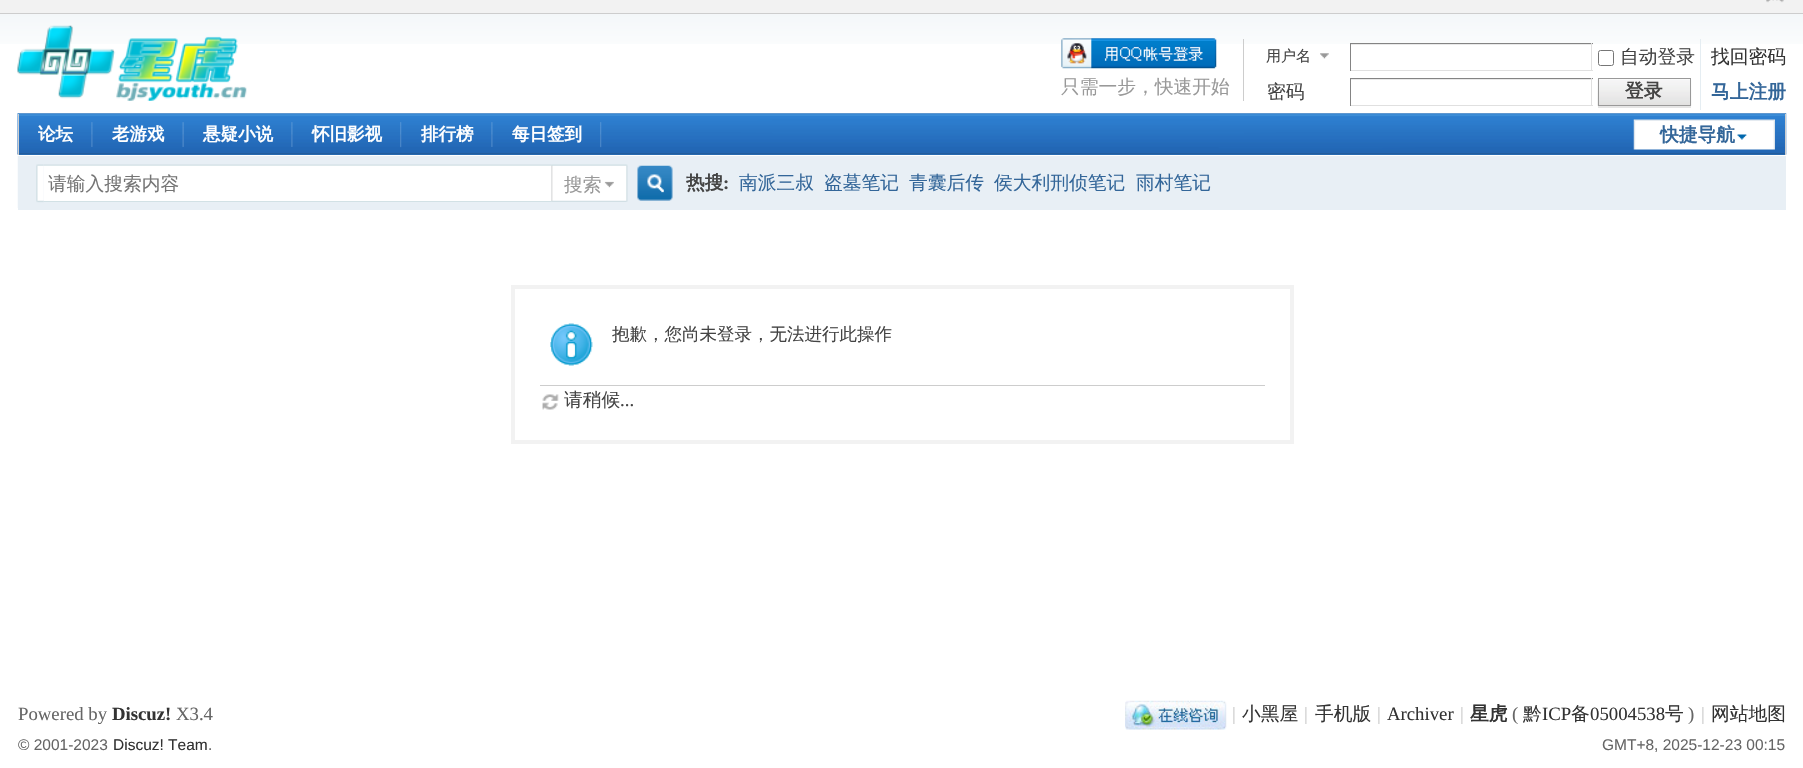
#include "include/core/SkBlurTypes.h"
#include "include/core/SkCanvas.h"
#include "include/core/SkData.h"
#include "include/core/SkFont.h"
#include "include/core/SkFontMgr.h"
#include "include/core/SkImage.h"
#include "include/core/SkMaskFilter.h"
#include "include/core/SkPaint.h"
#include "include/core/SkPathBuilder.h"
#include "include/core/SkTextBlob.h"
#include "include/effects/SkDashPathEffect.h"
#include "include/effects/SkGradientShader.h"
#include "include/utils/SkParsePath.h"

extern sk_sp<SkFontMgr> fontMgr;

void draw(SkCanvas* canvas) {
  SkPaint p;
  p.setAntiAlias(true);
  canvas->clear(SK_ColorWHITE);
  canvas->drawImageRect(SkImages::DeferredFromEncodedData(SkData::MakeFromFileName("images/1.png")), SkRect::MakeLTRB(0, 14, 1803, 44), SkSamplingOptions());
  p.setColor(SkColorSetRGB(242, 242, 242));
  canvas->drawRect(SkRect::MakeLTRB(0, 0, 1803, 13), p);
  p.setColor(SkColorSetRGB(205, 205, 205));
  canvas->drawRect(SkRect::MakeLTRB(0, 13, 1803, 14), p);
  canvas->drawImageRect(SkImages::DeferredFromEncodedData(SkData::MakeFromFileName("images/2.png")), SkRect::MakeLTRB(1766, 0, 1784, 3), SkSamplingOptions());
  canvas->drawImageRect(SkImages::DeferredFromEncodedData(SkData::MakeFromFileName("images/3.png")), SkRect::MakeLTRB(17, 25, 247, 101), SkSamplingOptions());
  canvas->drawRect(SkRect::MakeLTRB(1243, 39, 1244, 101), p);
  canvas->drawImageRect(SkImages::DeferredFromEncodedData(SkData::MakeFromFileName("images/4.png")), SkRect::MakeLTRB(1061, 38, 1217, 69), SkSamplingOptions());
  canvas->drawImageRect(SkImages::DeferredFromEncodedData(SkData::MakeFromFileName("images/5.png")), SkRect::MakeLTRB(1320, 53, 1329, 59), SkSamplingOptions());
  canvas->drawImageRect(SkImages::DeferredFromEncodedData(SkData::MakeFromFileName("images/6.png")), SkRect::MakeLTRB(1351, 44, 1593, 45), SkSamplingOptions());
  p.setColor(SkColorSetRGB(132, 132, 132));
  canvas->drawRect(SkRect::MakeLTRB(1350, 43, 1593, 44), p);
  p.setColor(SkColorSetRGB(224, 224, 224));
  canvas->drawRect(SkRect::MakeLTRB(1591, 43, 1592, 71), p);
  canvas->drawRect(SkRect::MakeLTRB(1350, 70, 1593, 71), p);
  p.setColor(SkColorSetRGB(132, 132, 132));
  canvas->drawRect(SkRect::MakeLTRB(1350, 43, 1351, 71), p);
  p.setStyle(SkPaint::kStroke_Style);
  p.setStrokeWidth(1);
  p.setColor(SkColorSetRGB(118, 118, 118));
  canvas->drawRoundRect(SkRect::MakeLTRB(1598.5f, 50.5f, 1613.5f, 65.5f), 2, 2, p);
  canvas->drawImageRect(SkImages::DeferredFromEncodedData(SkData::MakeFromFileName("images/6.png")), SkRect::MakeLTRB(1351, 79, 1593, 80), SkSamplingOptions());
  p.setStyle(SkPaint::kFill_Style);
  p.setColor(SkColorSetRGB(132, 132, 132));
  canvas->drawRect(SkRect::MakeLTRB(1350, 78, 1593, 79), p);
  p.setColor(SkColorSetRGB(224, 224, 224));
  canvas->drawRect(SkRect::MakeLTRB(1591, 78, 1592, 106), p);
  canvas->drawRect(SkRect::MakeLTRB(1350, 105, 1593, 106), p);
  p.setColor(SkColorSetRGB(132, 132, 132));
  canvas->drawRect(SkRect::MakeLTRB(1350, 78, 1351, 106), p);
  p.setColor(SkColorSetRGB(229, 237, 242));
  canvas->drawRect(SkRect::MakeLTRB(1700, 39, 1701, 110), p);
  p.setColor(SkColorSetRGB(229, 229, 229));
  canvas->drawRect(SkRect::MakeLTRB(1598, 106, 1691, 108), p);
  canvas->drawImageRect(SkImages::DeferredFromEncodedData(SkData::MakeFromFileName("images/7.png")), SkRect::MakeLTRB(1597, 78, 1692, 106), SkSamplingOptions());
  p.setStyle(SkPaint::kStroke_Style);
  p.setColor(SkColorSetRGB(153, 153, 153));
  canvas->drawRect(SkRect::MakeLTRB(1598.5f, 78.5f, 1690.5f, 105.5f), p);
  p.setStyle(SkPaint::kFill_Style);
  p.setColor(SkColorSetRGB(43, 122, 205));
  canvas->drawRect(SkRect::MakeLTRB(19, 154, 1785, 155), p);
  canvas->drawImageRect(SkImages::DeferredFromEncodedData(SkData::MakeFromFileName("images/8.png")), SkRect::MakeLTRB(17, 113, 1787, 155), SkSamplingOptions());
  p.setColor(SkColorSetRGB(205, 205, 205));
  canvas->drawRect(SkRect::MakeLTRB(1785, 114, 1786, 155), p);
  canvas->drawRect(SkRect::MakeLTRB(18, 114, 19, 155), p);
  canvas->drawImageRect(SkImages::DeferredFromEncodedData(SkData::MakeFromFileName("images/9.png")), SkRect::MakeLTRB(91, 122, 93, 147), SkSamplingOptions());
  canvas->drawImageRect(SkImages::DeferredFromEncodedData(SkData::MakeFromFileName("images/10.png")), SkRect::MakeLTRB(182, 122, 184, 147), SkSamplingOptions());
  canvas->drawImageRect(SkImages::DeferredFromEncodedData(SkData::MakeFromFileName("images/9.png")), SkRect::MakeLTRB(291, 122, 293, 147), SkSamplingOptions());
  canvas->drawImageRect(SkImages::DeferredFromEncodedData(SkData::MakeFromFileName("images/11.png")), SkRect::MakeLTRB(400, 122, 402, 148), SkSamplingOptions());
  canvas->drawImageRect(SkImages::DeferredFromEncodedData(SkData::MakeFromFileName("images/9.png")), SkRect::MakeLTRB(491, 122, 493, 147), SkSamplingOptions());
  canvas->drawImageRect(SkImages::DeferredFromEncodedData(SkData::MakeFromFileName("images/11.png")), SkRect::MakeLTRB(600, 122, 602, 148), SkSamplingOptions());
  canvas->drawImageRect(SkImages::DeferredFromEncodedData(SkData::MakeFromFileName("images/12.png")), SkRect::MakeLTRB(1633, 119, 1775, 150), SkSamplingOptions());
  p.setColor(SkColorSetRGB(232, 239, 245));
  canvas->drawRect(SkRect::MakeLTRB(18, 156, 1786, 210), p);
  canvas->drawImageRect(SkImages::DeferredFromEncodedData(SkData::MakeFromFileName("images/13.png")), SkRect::MakeLTRB(17, 156, 44, 208), SkSamplingOptions());
  canvas->drawImageRect(SkImages::DeferredFromEncodedData(SkData::MakeFromFileName("images/14.png")), SkRect::MakeLTRB(44, 164, 552, 202), SkSamplingOptions());
  p.setColor(SK_ColorWHITE);
  canvas->drawRect(SkRect::MakeLTRB(44, 200, 551, 201), p);
  canvas->drawImageRect(SkImages::DeferredFromEncodedData(SkData::MakeFromFileName("images/15.png")), SkRect::MakeLTRB(551, 164, 628, 202), SkSamplingOptions());
  canvas->drawImageRect(SkImages::DeferredFromEncodedData(SkData::MakeFromFileName("images/16.png")), SkRect::MakeLTRB(637, 165, 673, 201), SkSamplingOptions());
  p.setStyle(SkPaint::kStroke_Style);
  p.setStrokeWidth(4);
  p.setColor(SkColorSetRGB(242, 242, 242));
  canvas->drawRect(SkRect::MakeLTRB(513, 287, 1292, 442), p);
  canvas->drawImageRect(SkImages::DeferredFromEncodedData(SkData::MakeFromFileName("images/17.png")), SkRect::MakeLTRB(550, 323, 593, 366), SkSamplingOptions());
  p.setStyle(SkPaint::kFill_Style);
  p.setColor(SkColorSetRGB(205, 205, 205));
  canvas->drawRect(SkRect::MakeLTRB(540, 385, 1265, 386), p);
  canvas->drawImageRect(SkImages::DeferredFromEncodedData(SkData::MakeFromFileName("images/18.png")), SkRect::MakeLTRB(542, 394, 559, 410), SkSamplingOptions());
  canvas->drawImageRect(SkImages::DeferredFromEncodedData(SkData::MakeFromFileName("images/19.png")), SkRect::MakeLTRB(1125, 700, 1227, 730), SkSamplingOptions());
  SkFont font1(fontMgr->matchFamilyStyle("WenQuanYi Zen Hei", SkFontStyle(500, SkFontStyle::kNormal_Width, SkFontStyle::kUpright_Slant)), 18.75f);
  font1.setSubpixel(true);
  p.setColor(SkColorSetRGB(153, 153, 153));
  canvas->drawString("只需一步，快速开始", 1061, 93, font1, p);
  SkFont font2(fontMgr->matchFamilyStyle("WenQuanYi Zen Hei", SkFontStyle(500, SkFontStyle::kNormal_Width, SkFontStyle::kUpright_Slant)), 15);
  font2.setSubpixel(true);
  p.setColor(SkColorSetRGB(68, 68, 68));
  canvas->drawString("用户名", 1266, 61, font2, p);
  canvas->drawString("自动登录", 1620, 63, font1, p);
  p.setColor(SkColorSetRGB(51, 51, 51));
  canvas->drawString("找回密码", 1711, 63, font1, p);
  p.setColor(SkColorSetRGB(68, 68, 68));
  canvas->drawString("密码", 1267, 98, font1, p);
  SkFont font3(fontMgr->matchFamilyStyle("WenQuanYi Zen Hei", SkFontStyle::Bold()), 18.75f);
  font3.setSubpixel(true);
  canvas->drawString("登录", 1625, 97, font3, p);
  p.setColor(SkColorSetRGB(51, 102, 153));
  canvas->drawString("马上注册", 1711, 98, font3, p);
  SkFont font4(fontMgr->matchFamilyStyle("WenQuanYi Zen Hei", SkFontStyle::Bold()), 17.5f);
  font4.setSubpixel(true);
  p.setColor(SK_ColorWHITE);
  canvas->drawString("论坛", 38, 140, font4, p);
  canvas->drawString("老游戏", 112, 140, font4, p);
  canvas->drawString("悬疑小说", 203, 140, font4, p);
  canvas->drawString("怀旧影视", 312, 140, font4, p);
  canvas->drawString("排行榜", 421, 140, font4, p);
  canvas->drawString("每日签到", 512, 140, font4, p);
  p.setColor(SkColorSetRGB(51, 102, 153));
  canvas->drawString("快捷导航", 1660, 141, font3, p);
  p.setColor(SkColorSetRGB(117, 117, 117));
  canvas->drawString("请输入搜索内容", 48, 190, font1, p);
  p.setColor(SkColorSetRGB(153, 153, 153));
  canvas->drawString("搜索", 564, 191, font1, p);
  p.setColor(SkColorSetRGB(68, 68, 68));
  canvas->drawString("热搜", 686, 189, font3, p);
  SkFont font5(fontMgr->matchFamilyStyle("Liberation Serif", SkFontStyle::Bold()), 18.75f);
  font5.setSubpixel(true);
  canvas->drawString(":", 723, 189, font5, p);
  p.setColor(SkColorSetRGB(51, 102, 153));
  canvas->drawString("南派三叔", 739, 189, font1, p);
  canvas->drawString("盗墓笔记", 824, 189, font1, p);
  canvas->drawString("青囊后传", 909, 189, font1, p);
  canvas->drawString("侯大利刑侦笔记", 994, 189, font1, p);
  canvas->drawString("雨村笔记", 1136, 189, font1, p);
  SkFont font6(fontMgr->matchFamilyStyle("WenQuanYi Zen Hei", SkFontStyle(500, SkFontStyle::kNormal_Width, SkFontStyle::kUpright_Slant)), 17.5f);
  font6.setSubpixel(true);
  p.setColor(SkColorSetRGB(68, 68, 68));
  canvas->drawString("抱歉，您尚未登录，无法进行此操作", 612, 340, font6, p);
  canvas->drawString("请稍候", 564, 406, font1, p);
  SkFont font7(fontMgr->matchFamilyStyle("Liberation Serif", SkFontStyle::Normal()), 18.75f);
  font7.setSubpixel(true);
  canvas->drawString("...", 620, 406, font7, p);
  p.setColor(SkColorSetRGB(102, 102, 102));
  canvas->drawString("Powered by", 18, 720, font7, p);
  p.setColor(SkColorSetRGB(51, 51, 51));
  canvas->drawString("Discuz!", 112, 720, font5, p);
  p.setColor(SkColorSetRGB(102, 102, 102));
  canvas->drawString("X3.4", 176, 720, font7, p);
  SkFont font8(fontMgr->matchFamilyStyle("Liberation Sans", SkFontStyle::Normal()), 15.5f);
  font8.setSubpixel(true);
  canvas->drawString("© 2001-2023", 18, 750, font8, p);
  p.setColor(SkColorSetRGB(51, 51, 51));
  canvas->drawString("Discuz! Team", 113, 750, font8, p);
  p.setColor(SkColorSetRGB(102, 102, 102));
  canvas->drawString(".", 208, 750, font8, p);
  p.setColor(SkColorSetRGB(204, 204, 204));
  canvas->drawString("|", 1232, 720, font7, p);
  p.setColor(SkColorSetRGB(51, 51, 51));
  canvas->drawString("小黑屋", 1242, 720, font1, p);
  p.setColor(SkColorSetRGB(204, 204, 204));
  canvas->drawString("|", 1304, 720, font7, p);
  p.setColor(SkColorSetRGB(51, 51, 51));
  canvas->drawString("手机版", 1315, 720, font1, p);
  p.setColor(SkColorSetRGB(204, 204, 204));
  canvas->drawString("|", 1377, 720, font7, p);
  p.setColor(SkColorSetRGB(51, 51, 51));
  canvas->drawString("Archiver", 1387, 720, font7, p);
  p.setColor(SkColorSetRGB(204, 204, 204));
  canvas->drawString("|", 1460, 720, font7, p);
  p.setColor(SkColorSetRGB(51, 51, 51));
  canvas->drawString("星虎", 1470, 720, font3, p);
  p.setColor(SkColorSetRGB(102, 102, 102));
  canvas->drawString("(", 1512, 720, font7, p);
  p.setColor(SkColorSetRGB(51, 51, 51));
  canvas->drawString("黔", 1523, 720, font1, p);
  canvas->drawString("ICP", 1542, 720, font7, p);
  canvas->drawString("备", 1571, 720, font1, p);
  canvas->drawString("05004538", 1590, 720, font7, p);
  canvas->drawString("号", 1665, 720, font1, p);
  p.setColor(SkColorSetRGB(102, 102, 102));
  canvas->drawString(")", 1688, 720, font7, p);
  p.setColor(SkColorSetRGB(204, 204, 204));
  canvas->drawString("|", 1701, 720, font7, p);
  p.setColor(SkColorSetRGB(51, 51, 51));
  canvas->drawString("网站地图", 1711, 720, font1, p);
  p.setColor(SkColorSetRGB(102, 102, 102));
  canvas->drawString("GMT+8, 2025-12-23 00:15", 1602, 750, font8, p);
}
